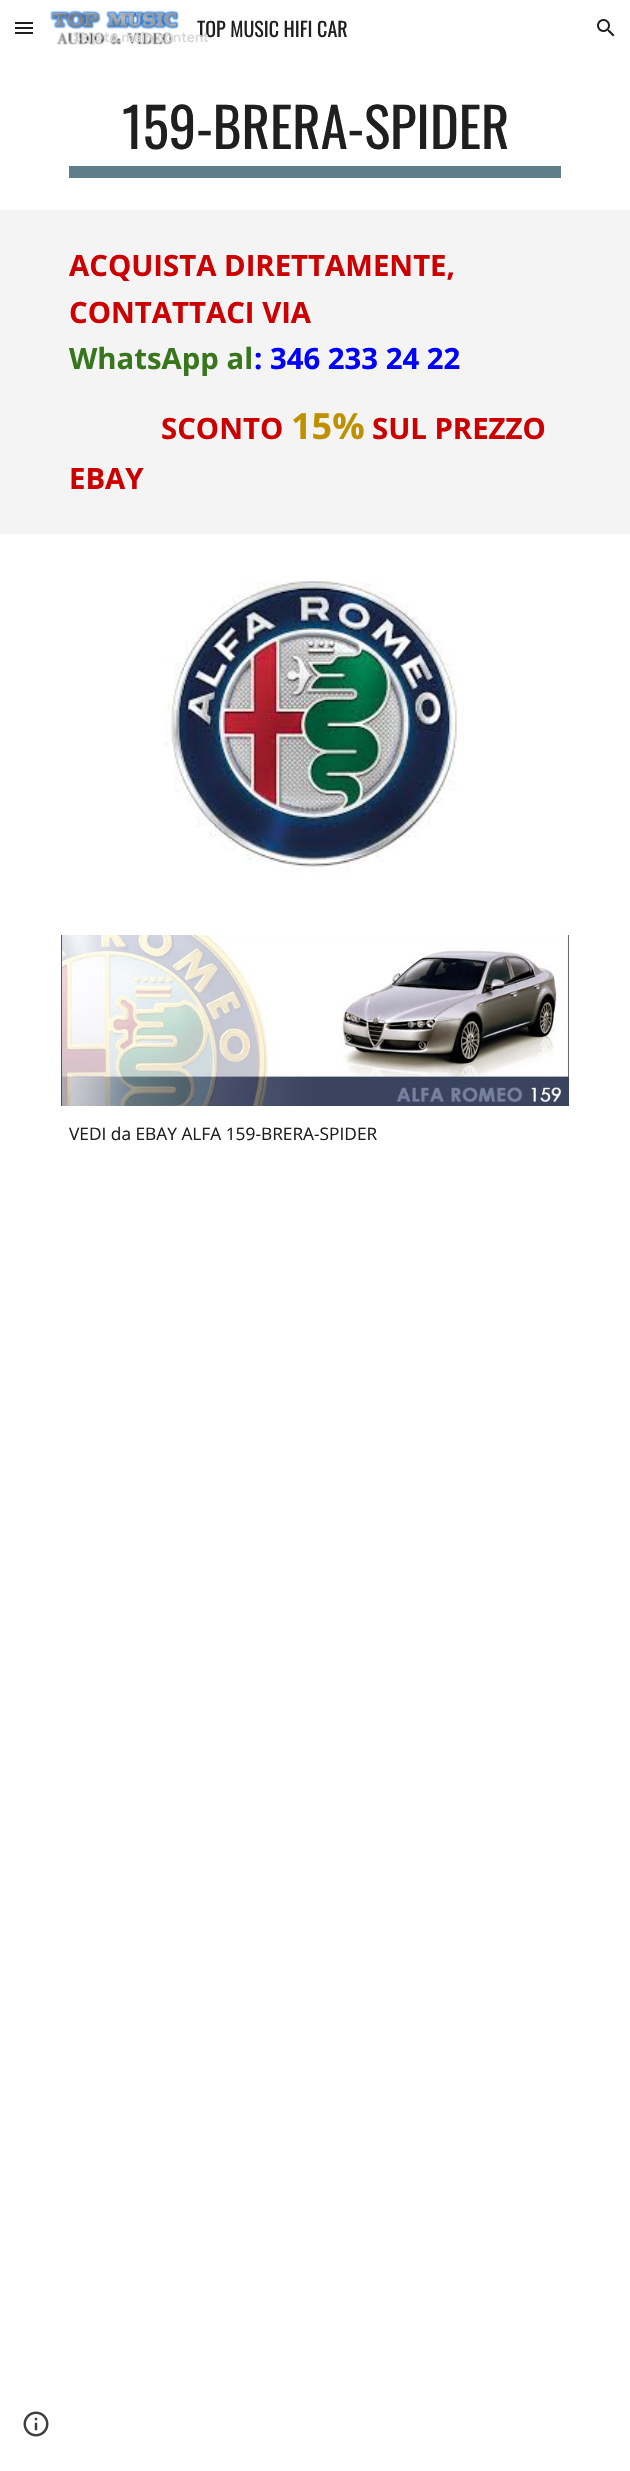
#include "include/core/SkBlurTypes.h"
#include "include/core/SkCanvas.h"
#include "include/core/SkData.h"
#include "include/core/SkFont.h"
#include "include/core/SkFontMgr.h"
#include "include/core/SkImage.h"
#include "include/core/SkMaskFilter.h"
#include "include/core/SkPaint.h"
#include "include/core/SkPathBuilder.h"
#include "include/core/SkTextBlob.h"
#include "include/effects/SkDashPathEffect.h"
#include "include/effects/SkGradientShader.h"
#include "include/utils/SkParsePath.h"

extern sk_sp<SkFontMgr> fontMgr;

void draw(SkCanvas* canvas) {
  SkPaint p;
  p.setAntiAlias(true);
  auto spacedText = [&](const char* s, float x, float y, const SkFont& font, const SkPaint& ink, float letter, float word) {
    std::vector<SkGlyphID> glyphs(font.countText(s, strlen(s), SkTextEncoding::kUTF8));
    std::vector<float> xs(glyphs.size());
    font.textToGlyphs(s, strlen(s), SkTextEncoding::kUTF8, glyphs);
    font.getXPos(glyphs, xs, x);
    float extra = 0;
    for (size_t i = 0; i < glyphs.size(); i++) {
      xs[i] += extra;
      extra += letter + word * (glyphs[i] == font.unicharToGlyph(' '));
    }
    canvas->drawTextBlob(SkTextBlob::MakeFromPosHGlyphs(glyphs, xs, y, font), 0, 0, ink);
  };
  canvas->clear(SK_ColorWHITE);
  p.setColor(SkColorSetRGB(31, 31, 31));
  canvas->drawRect(SkRect::MakeLTRB(15, 22, 33, 24), p);
  canvas->drawRect(SkRect::MakeLTRB(15, 27, 33, 29), p);
  canvas->drawRect(SkRect::MakeLTRB(15, 32, 33, 34), p);
  canvas->drawImageRect(SkImages::DeferredFromEncodedData(SkData::MakeFromFileName("images/1.png")), SkRect::MakeLTRB(50, 10, 179, 45), SkSamplingOptions());
  canvas->drawImageRect(SkImages::DeferredFromEncodedData(SkData::MakeFromFileName("images/2.png")), SkRect::MakeLTRB(597, 19, 615, 37), SkSamplingOptions());
  p.setColor(SkColorSetRGB(96, 125, 139));
  canvas->drawRect(SkRect::MakeLTRB(69, 166, 561, 178), p);
  p.setColor(SkColorSetRGB(244, 244, 244));
  canvas->drawRect(SkRect::MakeLTRB(0, 210, 630, 534), p);
  canvas->drawImageRect(SkImages::DeferredFromEncodedData(SkData::MakeFromFileName("images/3.png")), SkRect::MakeLTRB(164, 581, 464, 873), SkSamplingOptions());
  canvas->drawImageRect(SkImages::DeferredFromEncodedData(SkData::MakeFromFileName("images/4.png")), SkRect::MakeLTRB(61, 935, 569, 1106), SkSamplingOptions());
  canvas->drawImageRect(SkImages::DeferredFromEncodedData(SkData::MakeFromFileName("images/5.png")), SkRect::MakeLTRB(23, 2411, 49, 2437), SkSamplingOptions());
  SkFont font1(fontMgr->matchFamilyStyle("Oswald", SkFontStyle::Normal()), 20);
  font1.setSubpixel(true);
  p.setColor(SkColorSetRGB(31, 31, 31));
  canvas->drawString("TOP MUSIC HIFI CAR", 197, 37, font1, p);
  SkFont font2(fontMgr->matchFamilyStyle("Oswald", SkFontStyle::Normal()), 54.75f);
  font2.setSubpixel(true);
  canvas->drawString("159-BRERA-SPIDER", 122, 149, font2, p);
  SkFont font3(fontMgr->matchFamilyStyle("Open Sans", SkFontStyle::Bold()), 29.3f);
  font3.setSubpixel(true);
  p.setColor(SkColorSetRGB(204, 0, 0));
  canvas->drawString("ACQUISTA DIRETTAMENTE,", 69, 276, font3, p);
  canvas->drawString("CONTATTACI VIA", 69, 323, font3, p);
  p.setColor(SkColorSetRGB(56, 118, 29));
  canvas->drawString("WhatsApp al", 69, 369, font3, p);
  p.setColor(SkColorSetRGB(0, 0, 255));
  canvas->drawString(": 346 233 24 22", 254, 369, font3, p);
  p.setColor(SkColorSetRGB(204, 0, 0));
  canvas->drawString("SCONTO", 161, 439, font3, p);
  SkFont font4(fontMgr->matchFamilyStyle("Open Sans", SkFontStyle::Bold()), 36);
  font4.setSubpixel(true);
  p.setColor(SkColorSetRGB(191, 144, 0));
  canvas->drawString("15%", 291, 439, font4, p);
  p.setColor(SkColorSetRGB(204, 0, 0));
  canvas->drawString("SUL PREZZO", 372, 439, font3, p);
  canvas->drawString("EBAY", 69, 489, font3, p);
  SkFont font5(fontMgr->matchFamilyStyle("Open Sans", SkFontStyle::Normal()), 17.3f);
  font5.setSubpixel(true);
  p.setColor(SkColorSetRGB(31, 31, 31));
  canvas->drawString("VEDI da EBAY ALFA 159-BRERA-SPIDER", 69, 1140, font5, p);
  SkFont font6(fontMgr->matchFamilyStyle("Google Sans", SkFontStyle(500, SkFontStyle::kNormal_Width, SkFontStyle::kUpright_Slant)), 14);
  font6.setSubpixel(true);
  p.setColor(SkColorSetRGB(216, 216, 216));
  spacedText("Skip to main content", 73, 42, font6, p, 0.1f, 0);
}
